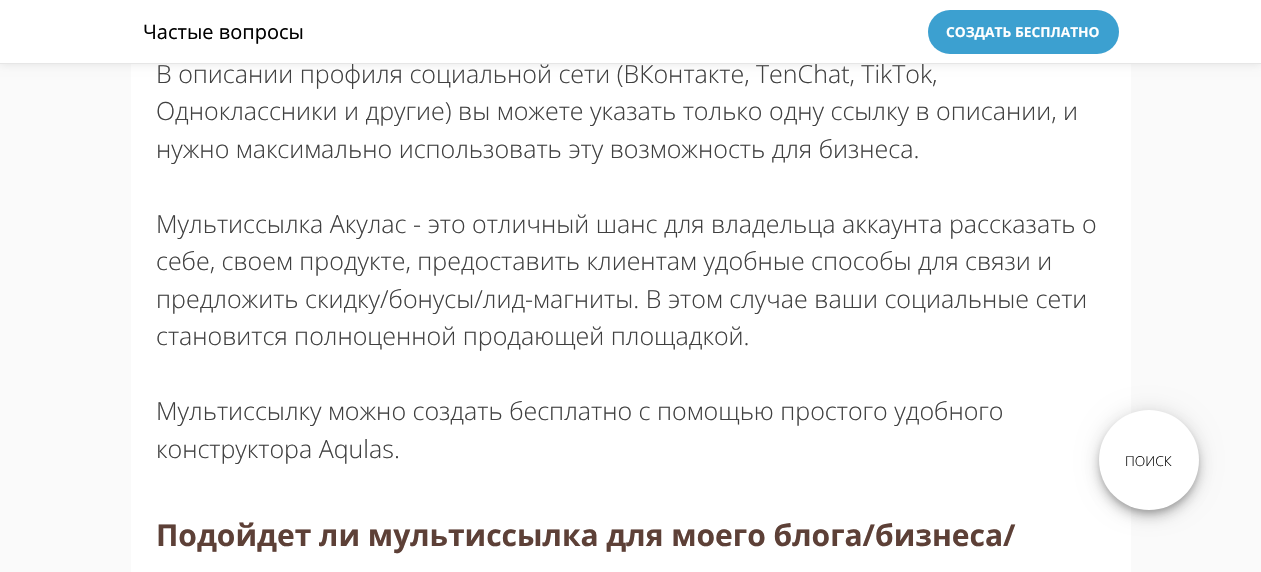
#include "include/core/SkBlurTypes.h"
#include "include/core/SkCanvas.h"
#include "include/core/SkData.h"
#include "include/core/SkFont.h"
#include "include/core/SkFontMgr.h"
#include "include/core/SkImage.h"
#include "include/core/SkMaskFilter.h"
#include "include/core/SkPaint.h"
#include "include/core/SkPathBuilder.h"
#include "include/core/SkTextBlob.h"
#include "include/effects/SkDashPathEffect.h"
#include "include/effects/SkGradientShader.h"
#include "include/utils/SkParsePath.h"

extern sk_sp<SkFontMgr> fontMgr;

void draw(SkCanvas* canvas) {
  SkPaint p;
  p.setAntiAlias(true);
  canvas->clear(SkColorSetRGB(250, 250, 250));
  p.setColor(SK_ColorWHITE);
  canvas->drawRect(SkRect::MakeLTRB(131, 64, 1131, 572), p);
  p.setColor(SkColorSetARGB(26, 0, 0, 0));
  p.setMaskFilter(SkMaskFilter::MakeBlur(kNormal_SkBlurStyle, 4.5f));
  canvas->drawRect(SkRect::MakeLTRB(0, 0, 1261, 64), p);
  p.setMaskFilter(nullptr);
  p.setColor(SK_ColorWHITE);
  canvas->drawRect(SkRect::MakeLTRB(0, 0, 1261, 63), p);
  p.setColor(SkColorSetRGB(230, 230, 230));
  canvas->drawRect(SkRect::MakeLTRB(0, 63, 1261, 64), p);
  p.setColor(SkColorSetRGB(60, 160, 208));
  canvas->drawRoundRect(SkRect::MakeLTRB(928, 10, 1119, 54), 22, 22, p);
  p.setColor(SkColorSetARGB(31, 0, 0, 0));
  p.setMaskFilter(SkMaskFilter::MakeBlur(kNormal_SkBlurStyle, 11));
  canvas->drawRoundRect(SkRect::MakeLTRB(1099, 411, 1199, 511), 50, 50, p);
  p.setMaskFilter(nullptr);
  p.setColor(SkColorSetARGB(36, 0, 0, 0));
  p.setMaskFilter(SkMaskFilter::MakeBlur(kNormal_SkBlurStyle, 6));
  canvas->drawRoundRect(SkRect::MakeLTRB(1099, 418, 1199, 518), 50, 50, p);
  p.setMaskFilter(nullptr);
  p.setColor(SkColorSetARGB(51, 0, 0, 0));
  p.setMaskFilter(SkMaskFilter::MakeBlur(kNormal_SkBlurStyle, 3));
  canvas->drawRoundRect(SkRect::MakeLTRB(1100, 415, 1198, 513), 49, 49, p);
  p.setMaskFilter(nullptr);
  p.setColor(SK_ColorWHITE);
  canvas->drawCircle(1149, 460, 50, p);
  SkFont font1(fontMgr->matchFamilyStyle("Open Sans", SkFontStyle::Normal()), 20);
  font1.setSubpixel(true);
  p.setColor(SK_ColorBLACK);
  canvas->drawString("Частые вопросы", 143, 39, font1, p);
  SkFont font2(fontMgr->matchFamilyStyle("Open Sans", SkFontStyle::Bold()), 13.75f);
  font2.setSubpixel(true);
  p.setColor(SK_ColorWHITE);
  canvas->drawString("СОЗДАТЬ БЕСПЛАТНО", 946, 37, font2, p);
  SkFont font3(fontMgr->matchFamilyStyle("Open Sans", SkFontStyle(300, SkFontStyle::kNormal_Width, SkFontStyle::kUpright_Slant)), 25);
  font3.setSubpixel(true);
  p.setColor(SkColorSetRGB(64, 64, 64));
  canvas->drawString("В описании профиля социальной сети (ВКонтакте, TenChat, TikTok,", 156, 83, font3, p);
  canvas->drawString("Одноклассники и другие) вы можете указать только одну ссылку в описании, и", 156, 120, font3, p);
  canvas->drawString("нужно максимально использовать эту возможность для бизнеса.", 156, 158, font3, p);
  canvas->drawString("Мультиссылка Акулас - это отличный шанс для владельца аккаунта рассказать о", 156, 233, font3, p);
  canvas->drawString("себе, своем продукте, предоставить клиентам удобные способы для связи и", 156, 270, font3, p);
  canvas->drawString("предложить скидку/бонусы/лид-магниты. В этом случае ваши социальные сети", 156, 308, font3, p);
  canvas->drawString("становится полноценной продающей площадкой.", 156, 345, font3, p);
  canvas->drawString("Мультиссылку можно создать бесплатно с помощью простого удобного", 156, 420, font3, p);
  canvas->drawString("конструктора Aqulas.", 156, 458, font3, p);
  SkFont font4(fontMgr->matchFamilyStyle("Open Sans", SkFontStyle::Bold()), 30);
  font4.setSubpixel(true);
  p.setColor(SkColorSetRGB(93, 64, 55));
  canvas->drawString("Подойдет ли мультиссылка для моего блога/бизнеса/", 156, 546, font4, p);
  SkFont font5(fontMgr->matchFamilyStyle("Open Sans", SkFontStyle(300, SkFontStyle::kNormal_Width, SkFontStyle::kUpright_Slant)), 13.75f);
  font5.setSubpixel(true);
  p.setColor(SK_ColorBLACK);
  canvas->drawString("ПОИСК", 1125, 466, font5, p);
}
